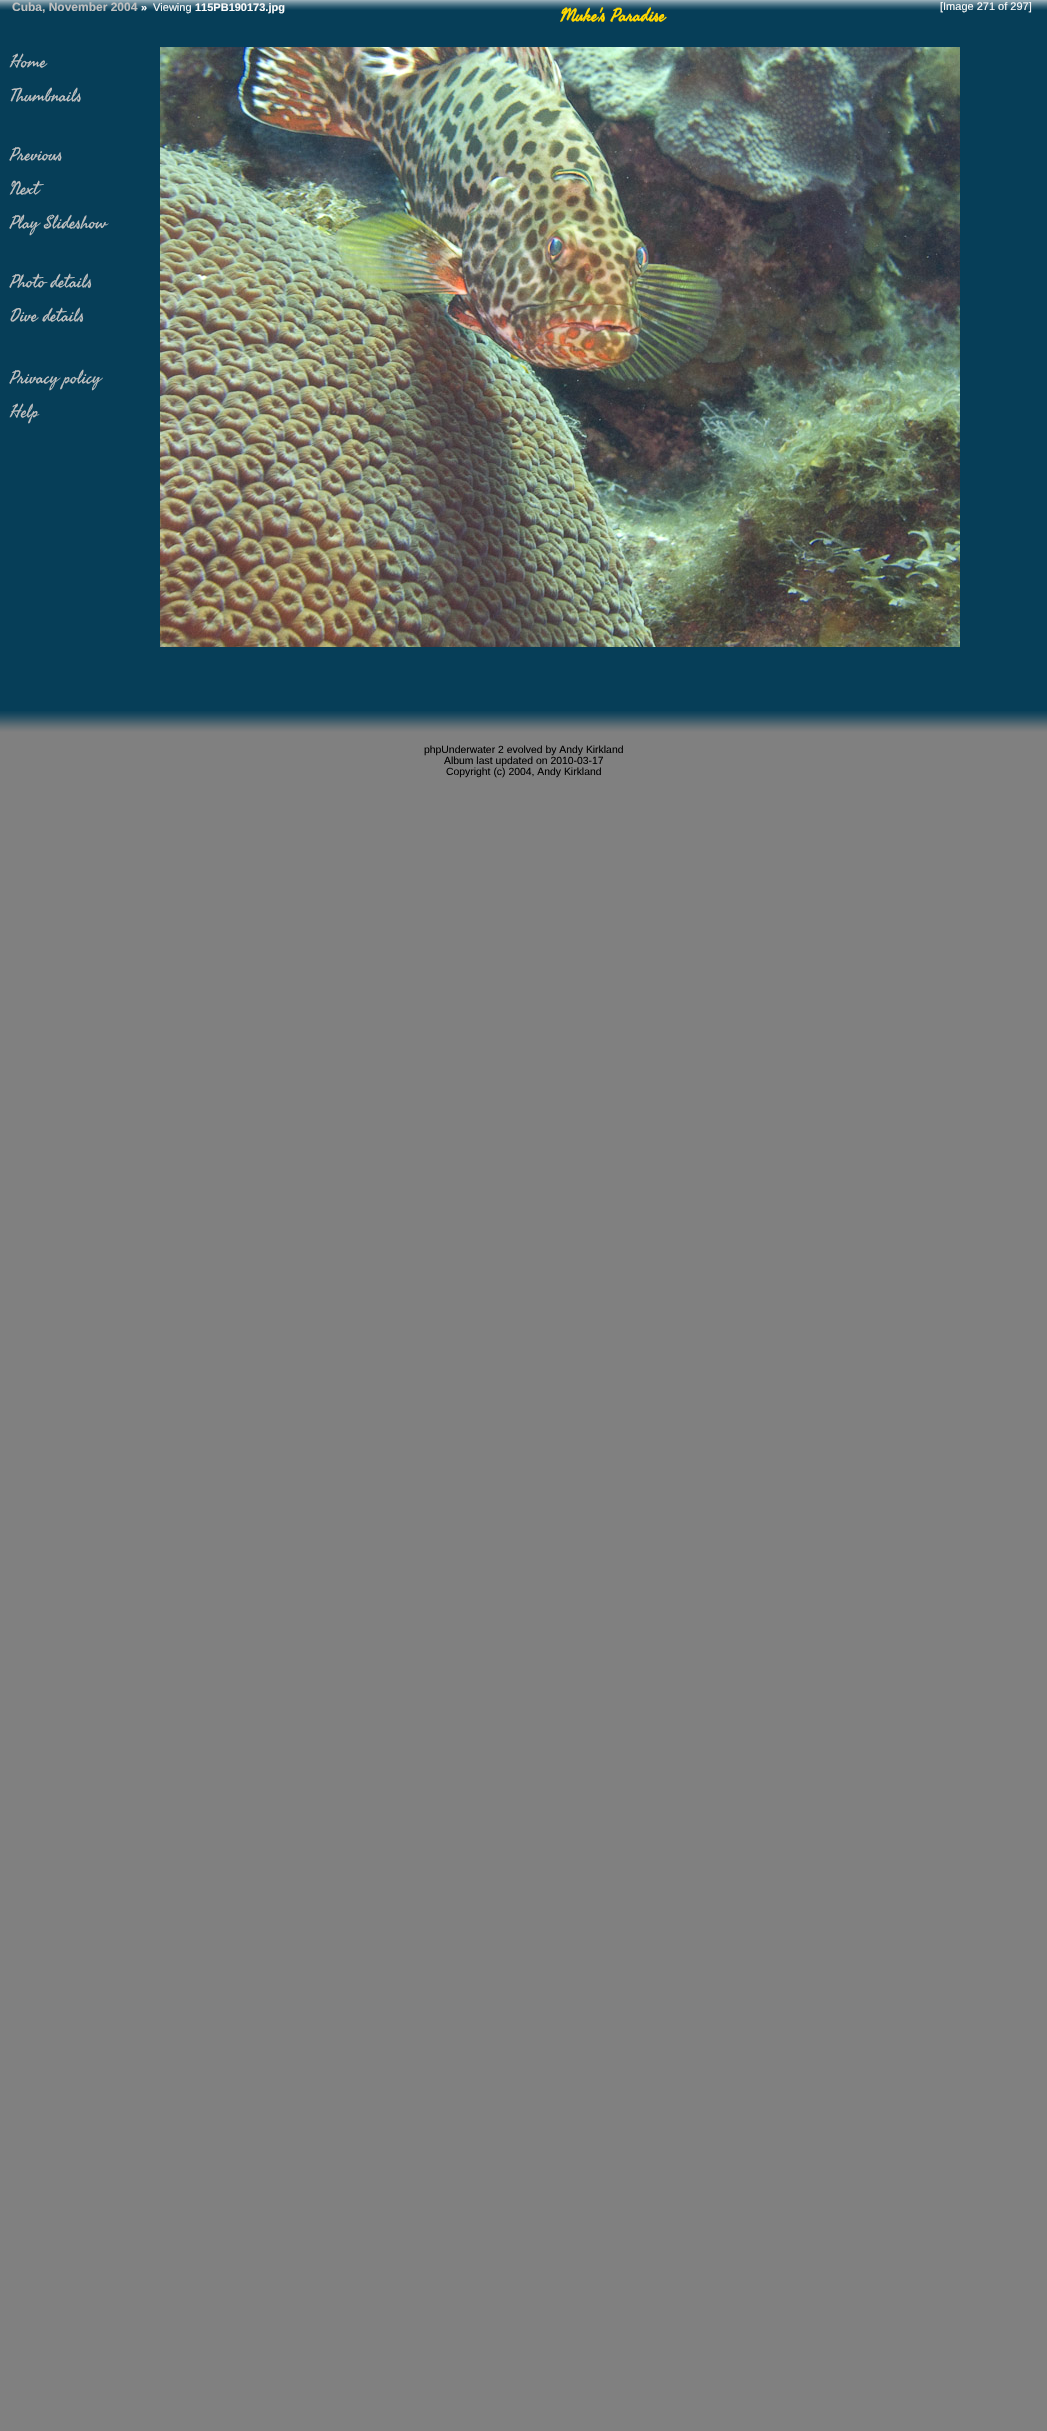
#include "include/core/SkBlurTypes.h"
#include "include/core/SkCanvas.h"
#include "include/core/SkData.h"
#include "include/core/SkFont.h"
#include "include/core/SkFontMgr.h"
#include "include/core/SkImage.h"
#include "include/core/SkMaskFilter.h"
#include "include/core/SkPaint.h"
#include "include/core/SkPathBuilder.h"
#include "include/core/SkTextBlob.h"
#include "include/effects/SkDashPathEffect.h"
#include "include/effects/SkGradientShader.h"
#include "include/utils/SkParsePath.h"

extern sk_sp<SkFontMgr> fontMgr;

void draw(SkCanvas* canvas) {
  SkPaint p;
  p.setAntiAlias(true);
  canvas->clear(SkColorSetRGB(128, 128, 128));
  p.setColor(SkColorSetRGB(6, 62, 88));
  canvas->drawRect(SkRect::MakeLTRB(0, 10, 1047, 711), p);
  canvas->drawImageRect(SkImages::DeferredFromEncodedData(SkData::MakeFromFileName("images/1.png")), SkRect::MakeLTRB(0, 0, 1047, 10), SkSamplingOptions());
  canvas->drawImageRect(SkImages::DeferredFromEncodedData(SkData::MakeFromFileName("images/2.png")), SkRect::MakeLTRB(160, 47, 960, 647), SkSamplingOptions());
  canvas->drawImageRect(SkImages::DeferredFromEncodedData(SkData::MakeFromFileName("images/3.png")), SkRect::MakeLTRB(0, 711, 1047, 734), SkSamplingOptions());
  SkFont font1(fontMgr->matchFamilyStyle("Liberation Sans", SkFontStyle::Bold()), 12);
  font1.setSubpixel(true);
  p.setColor(SkColorSetRGB(192, 192, 192));
  canvas->drawString("Cuba, November 2004", 12, 11, font1, p);
  SkFont font2(fontMgr->matchFamilyStyle("Liberation Sans", SkFontStyle::Bold()), 11);
  font2.setSubpixel(true);
  p.setColor(SkColorSetRGB(250, 250, 250));
  canvas->drawString("»", 141, 11, font2, p);
  SkFont font3(fontMgr->matchFamilyStyle("Liberation Sans", SkFontStyle::Normal()), 11);
  font3.setSubpixel(true);
  canvas->drawString("Viewing", 153, 11, font3, p);
  canvas->drawString("115PB190173.jpg", 195, 11, font2, p);
  SkFont font4(fontMgr->matchFamilyStyle("Seaweed Script", SkFontStyle::Bold()), 18);
  font4.setSubpixel(true);
  p.setColor(SkColorSetRGB(255, 215, 0));
  canvas->drawString("Muke's Paradise", 560, 21, font4, p);
  p.setColor(SkColorSetRGB(250, 250, 250));
  canvas->drawString("[Image 271 of 297]", 940, 10, font3, p);
  SkFont font5(fontMgr->matchFamilyStyle("Seaweed Script", SkFontStyle::Normal()), 18);
  font5.setSubpixel(true);
  p.setColor(SkColorSetRGB(192, 192, 192));
  canvas->drawString("Home", 10, 67, font5, p);
  canvas->drawString("Thumbnails", 10, 101, font5, p);
  canvas->drawString("Previous", 10, 160, font5, p);
  canvas->drawString("Next", 10, 194, font5, p);
  canvas->drawString("Play Slideshow", 10, 228, font5, p);
  canvas->drawString("Photo details", 10, 287, font5, p);
  canvas->drawString("Dive details", 10, 321, font5, p);
  canvas->drawString("Privacy policy", 10, 383, font5, p);
  canvas->drawString("Help", 10, 417, font5, p);
  SkFont font6(fontMgr->matchFamilyStyle("Liberation Sans", SkFontStyle::Normal()), 10.4f);
  font6.setSubpixel(true);
  p.setColor(SK_ColorBLACK);
  canvas->drawString("phpUnderwater 2 evolved by Andy Kirkland", 424, 753, font6, p);
  canvas->drawString("Album last updated on 2010-03-17", 444, 764, font6, p);
  canvas->drawString("Copyright (c) 2004, Andy Kirkland", 446, 775, font6, p);
}
